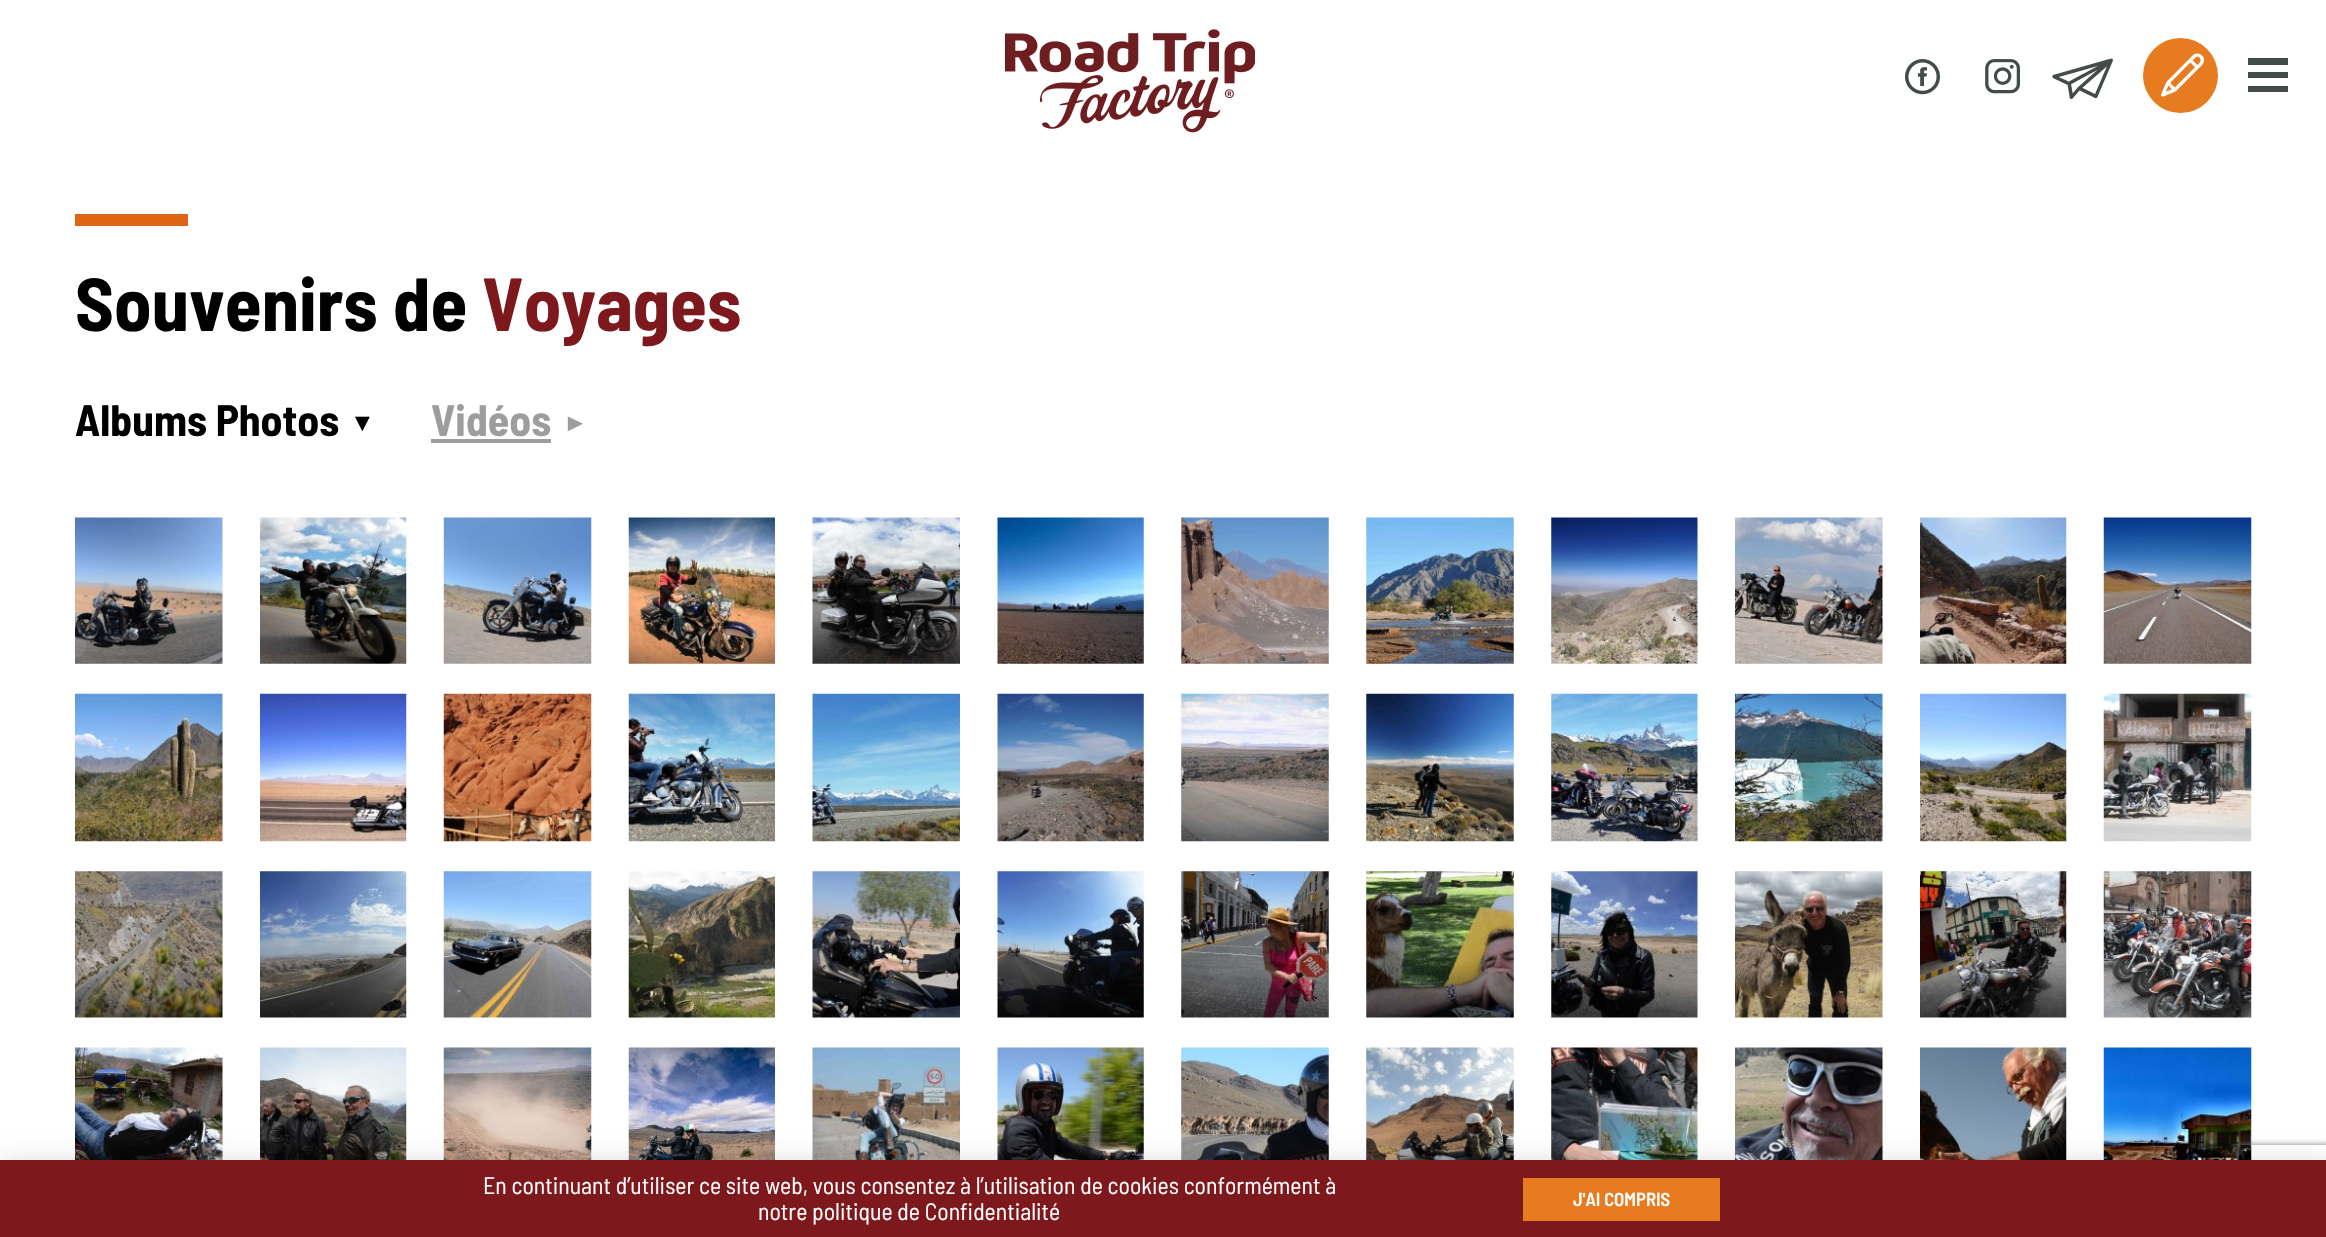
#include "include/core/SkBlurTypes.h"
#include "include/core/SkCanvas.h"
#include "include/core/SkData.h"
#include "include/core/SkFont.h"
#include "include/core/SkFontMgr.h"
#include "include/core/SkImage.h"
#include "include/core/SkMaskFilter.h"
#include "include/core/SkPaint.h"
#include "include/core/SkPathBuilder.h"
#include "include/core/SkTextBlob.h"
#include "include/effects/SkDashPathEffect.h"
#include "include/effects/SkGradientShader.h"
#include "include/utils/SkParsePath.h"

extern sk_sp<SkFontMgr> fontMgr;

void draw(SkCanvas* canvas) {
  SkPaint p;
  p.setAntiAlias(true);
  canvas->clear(SK_ColorWHITE);
  canvas->drawImageRect(SkImages::DeferredFromEncodedData(SkData::MakeFromFileName("images/1.png")), SkRect::MakeLTRB(1005, 29, 1255, 133), SkSamplingOptions());
  canvas->drawImageRect(SkImages::DeferredFromEncodedData(SkData::MakeFromFileName("images/2.png")), SkRect::MakeLTRB(1905, 59, 1940, 95), SkSamplingOptions());
  canvas->drawImageRect(SkImages::DeferredFromEncodedData(SkData::MakeFromFileName("images/3.png")), SkRect::MakeLTRB(1985, 59, 2020, 94), SkSamplingOptions());
  canvas->drawImageRect(SkImages::DeferredFromEncodedData(SkData::MakeFromFileName("images/4.png")), SkRect::MakeLTRB(2052, 58, 2113, 100), SkSamplingOptions());
  p.setColor(SkColorSetRGB(230, 123, 31));
  canvas->drawCircle(2180.5f, 75.5f, 37.5f, p);
  canvas->drawImageRect(SkImages::DeferredFromEncodedData(SkData::MakeFromFileName("images/5.png")), SkRect::MakeLTRB(2161, 53, 2205, 97), SkSamplingOptions());
  p.setColor(SkColorSetRGB(67, 75, 75));
  canvas->drawPath(SkPathBuilder().moveTo(2248, 58).lineTo(2248, 65).lineTo(2288, 65).lineTo(2288, 58).close().moveTo(2248, 72).lineTo(2248, 78).lineTo(2288, 78).lineTo(2288, 72).close().moveTo(2248, 86).lineTo(2248, 92).lineTo(2288, 92).lineTo(2288, 86).close().detach(), p);
  p.setColor(SkColorSetRGB(222, 101, 20));
  canvas->drawRect(SkRect::MakeLTRB(75, 214, 188, 226), p);
  p.setColor(SkColorSetRGB(157, 157, 156));
  canvas->drawRect(SkRect::MakeLTRB(431, 439, 551, 443), p);
  canvas->drawImageRect(SkImages::DeferredFromEncodedData(SkData::MakeFromFileName("images/6.png")), SkRect::MakeLTRB(75, 517, 223, 664), SkSamplingOptions());
  canvas->drawImageRect(SkImages::DeferredFromEncodedData(SkData::MakeFromFileName("images/7.png")), SkRect::MakeLTRB(260, 517, 407, 664), SkSamplingOptions());
  canvas->drawImageRect(SkImages::DeferredFromEncodedData(SkData::MakeFromFileName("images/8.png")), SkRect::MakeLTRB(443, 517, 592, 664), SkSamplingOptions());
  canvas->drawImageRect(SkImages::DeferredFromEncodedData(SkData::MakeFromFileName("images/9.png")), SkRect::MakeLTRB(628, 517, 775, 664), SkSamplingOptions());
  canvas->drawImageRect(SkImages::DeferredFromEncodedData(SkData::MakeFromFileName("images/10.png")), SkRect::MakeLTRB(812, 517, 960, 664), SkSamplingOptions());
  canvas->drawImageRect(SkImages::DeferredFromEncodedData(SkData::MakeFromFileName("images/11.png")), SkRect::MakeLTRB(997, 517, 1144, 664), SkSamplingOptions());
  canvas->drawImageRect(SkImages::DeferredFromEncodedData(SkData::MakeFromFileName("images/12.png")), SkRect::MakeLTRB(1181, 517, 1329, 664), SkSamplingOptions());
  canvas->drawImageRect(SkImages::DeferredFromEncodedData(SkData::MakeFromFileName("images/13.png")), SkRect::MakeLTRB(1366, 517, 1514, 664), SkSamplingOptions());
  canvas->drawImageRect(SkImages::DeferredFromEncodedData(SkData::MakeFromFileName("images/14.png")), SkRect::MakeLTRB(1551, 517, 1698, 664), SkSamplingOptions());
  canvas->drawImageRect(SkImages::DeferredFromEncodedData(SkData::MakeFromFileName("images/15.png")), SkRect::MakeLTRB(1735, 517, 1883, 664), SkSamplingOptions());
  canvas->drawImageRect(SkImages::DeferredFromEncodedData(SkData::MakeFromFileName("images/16.png")), SkRect::MakeLTRB(1920, 517, 2067, 664), SkSamplingOptions());
  canvas->drawImageRect(SkImages::DeferredFromEncodedData(SkData::MakeFromFileName("images/17.png")), SkRect::MakeLTRB(2103, 517, 2252, 664), SkSamplingOptions());
  canvas->drawImageRect(SkImages::DeferredFromEncodedData(SkData::MakeFromFileName("images/18.png")), SkRect::MakeLTRB(75, 693, 223, 842), SkSamplingOptions());
  canvas->drawImageRect(SkImages::DeferredFromEncodedData(SkData::MakeFromFileName("images/19.png")), SkRect::MakeLTRB(260, 693, 407, 842), SkSamplingOptions());
  canvas->drawImageRect(SkImages::DeferredFromEncodedData(SkData::MakeFromFileName("images/20.png")), SkRect::MakeLTRB(443, 693, 592, 842), SkSamplingOptions());
  canvas->drawImageRect(SkImages::DeferredFromEncodedData(SkData::MakeFromFileName("images/21.png")), SkRect::MakeLTRB(628, 693, 775, 842), SkSamplingOptions());
  canvas->drawImageRect(SkImages::DeferredFromEncodedData(SkData::MakeFromFileName("images/22.png")), SkRect::MakeLTRB(812, 693, 960, 842), SkSamplingOptions());
  canvas->drawImageRect(SkImages::DeferredFromEncodedData(SkData::MakeFromFileName("images/23.png")), SkRect::MakeLTRB(997, 693, 1144, 842), SkSamplingOptions());
  canvas->drawImageRect(SkImages::DeferredFromEncodedData(SkData::MakeFromFileName("images/24.png")), SkRect::MakeLTRB(1181, 693, 1329, 842), SkSamplingOptions());
  canvas->drawImageRect(SkImages::DeferredFromEncodedData(SkData::MakeFromFileName("images/25.png")), SkRect::MakeLTRB(1366, 693, 1514, 842), SkSamplingOptions());
  canvas->drawImageRect(SkImages::DeferredFromEncodedData(SkData::MakeFromFileName("images/26.png")), SkRect::MakeLTRB(1551, 693, 1698, 842), SkSamplingOptions());
  canvas->drawImageRect(SkImages::DeferredFromEncodedData(SkData::MakeFromFileName("images/27.png")), SkRect::MakeLTRB(1735, 693, 1883, 842), SkSamplingOptions());
  canvas->drawImageRect(SkImages::DeferredFromEncodedData(SkData::MakeFromFileName("images/28.png")), SkRect::MakeLTRB(1920, 693, 2067, 842), SkSamplingOptions());
  canvas->drawImageRect(SkImages::DeferredFromEncodedData(SkData::MakeFromFileName("images/29.png")), SkRect::MakeLTRB(2103, 693, 2252, 842), SkSamplingOptions());
  canvas->drawImageRect(SkImages::DeferredFromEncodedData(SkData::MakeFromFileName("images/30.png")), SkRect::MakeLTRB(75, 871, 223, 1018), SkSamplingOptions());
  canvas->drawImageRect(SkImages::DeferredFromEncodedData(SkData::MakeFromFileName("images/31.png")), SkRect::MakeLTRB(260, 871, 407, 1018), SkSamplingOptions());
  canvas->drawImageRect(SkImages::DeferredFromEncodedData(SkData::MakeFromFileName("images/32.png")), SkRect::MakeLTRB(443, 871, 592, 1018), SkSamplingOptions());
  canvas->drawImageRect(SkImages::DeferredFromEncodedData(SkData::MakeFromFileName("images/33.png")), SkRect::MakeLTRB(628, 871, 775, 1018), SkSamplingOptions());
  canvas->drawImageRect(SkImages::DeferredFromEncodedData(SkData::MakeFromFileName("images/34.png")), SkRect::MakeLTRB(812, 871, 960, 1018), SkSamplingOptions());
  canvas->drawImageRect(SkImages::DeferredFromEncodedData(SkData::MakeFromFileName("images/35.png")), SkRect::MakeLTRB(997, 871, 1144, 1018), SkSamplingOptions());
  canvas->drawImageRect(SkImages::DeferredFromEncodedData(SkData::MakeFromFileName("images/36.png")), SkRect::MakeLTRB(1181, 871, 1329, 1018), SkSamplingOptions());
  canvas->drawImageRect(SkImages::DeferredFromEncodedData(SkData::MakeFromFileName("images/37.png")), SkRect::MakeLTRB(1366, 871, 1514, 1018), SkSamplingOptions());
  canvas->drawImageRect(SkImages::DeferredFromEncodedData(SkData::MakeFromFileName("images/38.png")), SkRect::MakeLTRB(1551, 871, 1698, 1018), SkSamplingOptions());
  canvas->drawImageRect(SkImages::DeferredFromEncodedData(SkData::MakeFromFileName("images/39.png")), SkRect::MakeLTRB(1735, 871, 1883, 1018), SkSamplingOptions());
  canvas->drawImageRect(SkImages::DeferredFromEncodedData(SkData::MakeFromFileName("images/40.png")), SkRect::MakeLTRB(1920, 871, 2067, 1018), SkSamplingOptions());
  canvas->drawImageRect(SkImages::DeferredFromEncodedData(SkData::MakeFromFileName("images/41.png")), SkRect::MakeLTRB(2103, 871, 2252, 1018), SkSamplingOptions());
  canvas->drawImageRect(SkImages::DeferredFromEncodedData(SkData::MakeFromFileName("images/42.png")), SkRect::MakeLTRB(75, 1047, 223, 1160), SkSamplingOptions());
  canvas->drawImageRect(SkImages::DeferredFromEncodedData(SkData::MakeFromFileName("images/43.png")), SkRect::MakeLTRB(260, 1047, 407, 1160), SkSamplingOptions());
  canvas->drawImageRect(SkImages::DeferredFromEncodedData(SkData::MakeFromFileName("images/44.png")), SkRect::MakeLTRB(443, 1047, 592, 1160), SkSamplingOptions());
  canvas->drawImageRect(SkImages::DeferredFromEncodedData(SkData::MakeFromFileName("images/45.png")), SkRect::MakeLTRB(628, 1047, 775, 1160), SkSamplingOptions());
  canvas->drawImageRect(SkImages::DeferredFromEncodedData(SkData::MakeFromFileName("images/46.png")), SkRect::MakeLTRB(812, 1047, 960, 1160), SkSamplingOptions());
  canvas->drawImageRect(SkImages::DeferredFromEncodedData(SkData::MakeFromFileName("images/47.png")), SkRect::MakeLTRB(997, 1047, 1144, 1160), SkSamplingOptions());
  canvas->drawImageRect(SkImages::DeferredFromEncodedData(SkData::MakeFromFileName("images/48.png")), SkRect::MakeLTRB(1181, 1047, 1329, 1160), SkSamplingOptions());
  canvas->drawImageRect(SkImages::DeferredFromEncodedData(SkData::MakeFromFileName("images/49.png")), SkRect::MakeLTRB(1366, 1047, 1514, 1160), SkSamplingOptions());
  canvas->drawImageRect(SkImages::DeferredFromEncodedData(SkData::MakeFromFileName("images/50.png")), SkRect::MakeLTRB(1551, 1047, 1698, 1160), SkSamplingOptions());
  canvas->drawImageRect(SkImages::DeferredFromEncodedData(SkData::MakeFromFileName("images/51.png")), SkRect::MakeLTRB(1735, 1047, 1883, 1160), SkSamplingOptions());
  canvas->drawImageRect(SkImages::DeferredFromEncodedData(SkData::MakeFromFileName("images/52.png")), SkRect::MakeLTRB(1920, 1047, 2067, 1160), SkSamplingOptions());
  canvas->drawImageRect(SkImages::DeferredFromEncodedData(SkData::MakeFromFileName("images/53.png")), SkRect::MakeLTRB(2103, 1047, 2252, 1160), SkSamplingOptions());
  p.setColor(SkColorSetARGB(51, 0, 0, 0));
  p.setMaskFilter(SkMaskFilter::MakeBlur(kNormal_SkBlurStyle, 14.5f));
  canvas->drawRect(SkRect::MakeLTRB(-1, 1166, 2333, 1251), p);
  p.setMaskFilter(nullptr);
  canvas->save();
  canvas->clipPath(SkPathBuilder(SkPathFillType::kEvenOdd).moveTo(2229, 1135).lineTo(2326, 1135).lineTo(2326, 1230).lineTo(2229, 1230).close().moveTo(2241.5f, 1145).lineTo(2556.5f, 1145).cubicTo(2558, 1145, 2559, 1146, 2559, 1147.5f).lineTo(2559, 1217.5f).cubicTo(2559, 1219, 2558, 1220, 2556.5f, 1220).lineTo(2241.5f, 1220).cubicTo(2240, 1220, 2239, 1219, 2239, 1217.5f).lineTo(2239, 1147.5f).cubicTo(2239, 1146, 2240, 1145, 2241.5f, 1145).close().detach(), true);
  p.setColor(SkColorSetRGB(128, 128, 128));
  p.setMaskFilter(SkMaskFilter::MakeBlur(kNormal_SkBlurStyle, 3));
  canvas->drawRoundRect(SkRect::MakeLTRB(2239, 1145, 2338, 1220), 2.5f, 2.5f, p);
  p.setMaskFilter(nullptr);
  canvas->restore();
  p.setColor(SkColorSetRGB(125, 24, 29));
  canvas->drawRect(SkRect::MakeLTRB(0, 1160, 2326, 1237), p);
  p.setColor(SkColorSetRGB(230, 123, 31));
  canvas->drawRect(SkRect::MakeLTRB(1523, 1178, 1720, 1221), p);
  SkFont font1(fontMgr->matchFamilyStyle("Barlow Semi Condensed", SkFontStyle::Bold()), 75);
  font1.setSubpixel(true);
  p.setColor(SK_ColorBLACK);
  canvas->drawString("Souvenirs de", 75, 331, font1, p);
  p.setColor(SkColorSetRGB(125, 24, 29));
  canvas->drawString("Voyages", 482, 331, font1, p);
  SkFont font2(fontMgr->matchFamilyStyle("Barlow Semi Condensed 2", SkFontStyle::Bold()), 43.75f);
  font2.setSubpixel(true);
  p.setColor(SK_ColorBLACK);
  canvas->drawString("Albums Photos", 75, 436, font2, p);
  SkFont font3(fontMgr->matchFamilyStyle("Liberation Serif", SkFontStyle::Bold()), 25);
  font3.setSubpixel(true);
  canvas->drawString("▼", 350, 431, font3, p);
  p.setColor(SkColorSetRGB(157, 157, 156));
  canvas->drawString("Vidéos", 431, 436, font2, p);
  canvas->drawString("►", 563, 431, font3, p);
  SkFont font4(fontMgr->matchFamilyStyle("Barlow Semi Condensed", SkFontStyle::Normal()), 23.75f);
  font4.setSubpixel(true);
  p.setColor(SK_ColorWHITE);
  canvas->drawString("En continuant d’utiliser ce site web, vous consentez à l’utilisation de cookies conformément à", 483, 1194, font4, p);
  canvas->drawString("notre politique de Confidentialité", 758, 1220, font4, p);
  SkFont font5(fontMgr->matchFamilyStyle("Barlow Semi Condensed", SkFontStyle(600, SkFontStyle::kNormal_Width, SkFontStyle::kUpright_Slant)), 18.75f);
  font5.setSubpixel(true);
  canvas->drawString("J'AI COMPRIS", 1573, 1206, font5, p);
}
